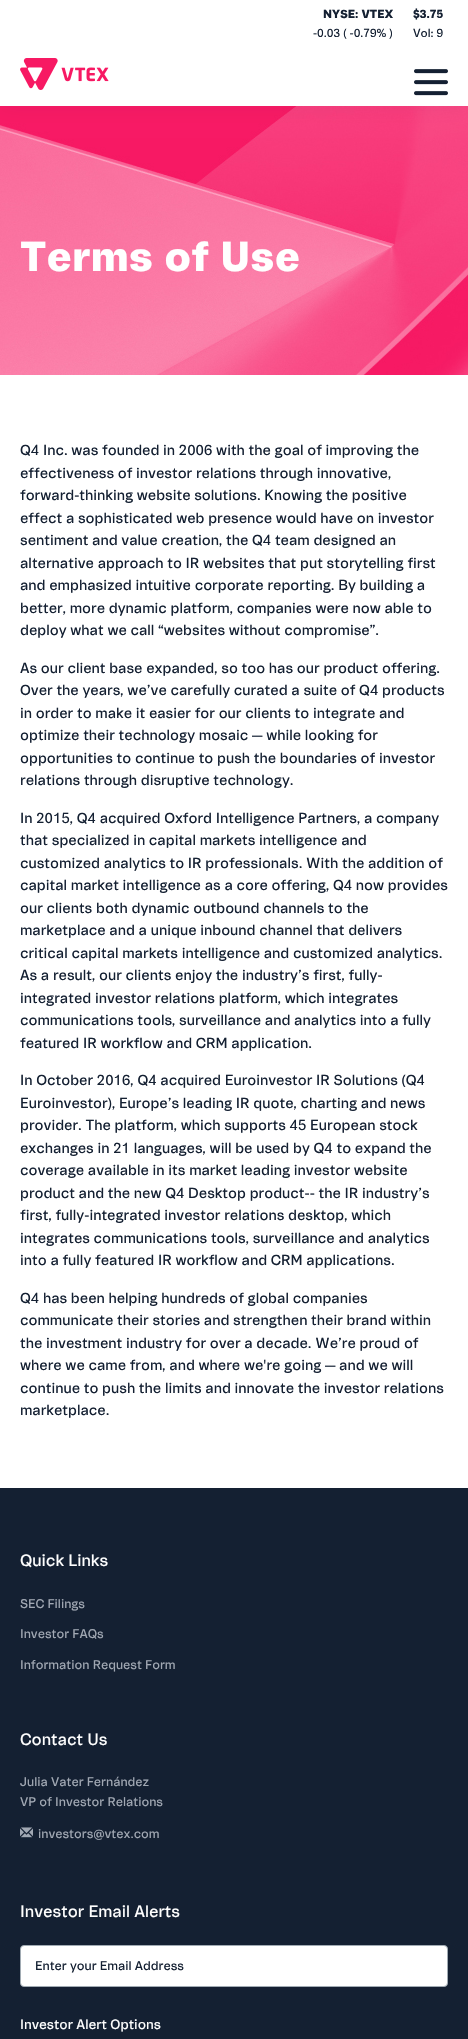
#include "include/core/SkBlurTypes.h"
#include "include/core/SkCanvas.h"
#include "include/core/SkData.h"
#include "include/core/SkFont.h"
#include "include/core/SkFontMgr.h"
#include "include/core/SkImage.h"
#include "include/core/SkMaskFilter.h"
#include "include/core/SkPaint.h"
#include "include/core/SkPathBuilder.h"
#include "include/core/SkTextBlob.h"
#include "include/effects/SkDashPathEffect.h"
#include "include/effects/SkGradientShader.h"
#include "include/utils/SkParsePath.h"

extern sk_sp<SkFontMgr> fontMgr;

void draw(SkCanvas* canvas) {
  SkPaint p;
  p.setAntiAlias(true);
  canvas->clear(SK_ColorWHITE);
  canvas->drawImageRect(SkImages::DeferredFromEncodedData(SkData::MakeFromFileName("images/3.png")), SkRect::MakeLTRB(0, 106, 468, 375), SkSamplingOptions());
  p.setColor(SkColorSetARGB(13, 40, 48, 51));
  p.setMaskFilter(SkMaskFilter::MakeBlur(kNormal_SkBlurStyle, 10));
  canvas->drawRect(SkRect::MakeLTRB(0, 2, 468, 108), p);
  p.setMaskFilter(nullptr);
  p.setColor(SK_ColorWHITE);
  canvas->drawRect(SkRect::MakeLTRB(0, 0, 468, 106), p);
  canvas->drawImageRect(SkImages::DeferredFromEncodedData(SkData::MakeFromFileName("images/1.png")), SkRect::MakeLTRB(20, 58, 109, 90), SkSamplingOptions());
  canvas->drawImageRect(SkImages::DeferredFromEncodedData(SkData::MakeFromFileName("images/2.png")), SkRect::MakeLTRB(414, 69, 448, 96), SkSamplingOptions());
  p.setColor(SkColorSetRGB(20, 32, 50));
  canvas->drawRect(SkRect::MakeLTRB(0, 1488, 468, 2039), p);
  canvas->drawImageRect(SkImages::DeferredFromEncodedData(SkData::MakeFromFileName("images/4.png")), SkRect::MakeLTRB(20, 1827, 33, 1838), SkSamplingOptions());
  p.setColor(SK_ColorWHITE);
  canvas->drawRoundRect(SkRect::MakeLTRB(20.5f, 1945.5f, 447.5f, 1986.5f), 3.5f, 3.5f, p);
  p.setStyle(SkPaint::kStroke_Style);
  p.setStrokeWidth(1);
  p.setColor(SkColorSetRGB(161, 171, 179));
  canvas->drawRoundRect(SkRect::MakeLTRB(20.5f, 1945.5f, 447.5f, 1986.5f), 3.5f, 3.5f, p);
  SkFont font1(fontMgr->matchFamilyStyle("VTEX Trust", SkFontStyle::Bold()), 12);
  font1.setSubpixel(true);
  p.setStyle(SkPaint::kFill_Style);
  p.setColor(SkColorSetRGB(20, 32, 50));
  canvas->drawString("NYSE: VTEX", 323, 18, font1, p);
  canvas->drawString("$3.75", 413, 18, font1, p);
  SkFont font2(fontMgr->matchFamilyStyle("VTEX Trust", SkFontStyle::Normal()), 12);
  font2.setSubpixel(true);
  canvas->drawString("-0.03 ( -0.79% )", 313, 37, font2, p);
  canvas->drawString("Vol: 9", 413, 37, font2, p);
  SkFont font3(fontMgr->matchFamilyStyle("VTEX Trust", SkFontStyle::Bold()), 43);
  font3.setSubpixel(true);
  p.setColor(SK_ColorWHITE);
  canvas->drawString("Terms of Use", 20, 271, font3, p);
  SkFont font4(fontMgr->matchFamilyStyle("VTEX Trust", SkFontStyle::Normal()), 15);
  font4.setSubpixel(true);
  p.setColor(SkColorSetRGB(20, 32, 50));
  canvas->drawString("Q4 Inc. was founded in 2006 with the goal of improving the", 20, 455, font4, p);
  canvas->drawString("effectiveness of investor relations through innovative,", 20, 478, font4, p);
  canvas->drawString("forward-thinking website solutions. Knowing the positive", 20, 500, font4, p);
  canvas->drawString("effect a sophisticated web presence would have on investor", 20, 523, font4, p);
  canvas->drawString("sentiment and value creation, the Q4 team designed an", 20, 545, font4, p);
  canvas->drawString("alternative approach to IR websites that put storytelling first", 20, 568, font4, p);
  canvas->drawString("and emphasized intuitive corporate reporting. By building a", 20, 590, font4, p);
  canvas->drawString("better, more dynamic platform, companies were now able to", 20, 613, font4, p);
  canvas->drawString("deploy what we call “websites without compromise”.", 20, 635, font4, p);
  canvas->drawString("As our client base expanded, so too has our product offering.", 20, 673, font4, p);
  canvas->drawString("Over the years, we’ve carefully curated a suite of Q4 products", 20, 695, font4, p);
  canvas->drawString("in order to make it easier for our clients to integrate and", 20, 718, font4, p);
  canvas->drawString("optimize their technology mosaic — while looking for", 20, 740, font4, p);
  canvas->drawString("opportunities to continue to push the boundaries of investor", 20, 763, font4, p);
  canvas->drawString("relations through disruptive technology.", 20, 785, font4, p);
  canvas->drawString("In 2015, Q4 acquired Oxford Intelligence Partners, a company", 20, 823, font4, p);
  canvas->drawString("that specialized in capital markets intelligence and", 20, 845, font4, p);
  canvas->drawString("customized analytics to IR professionals. With the addition of", 20, 868, font4, p);
  canvas->drawString("capital market intelligence as a core offering, Q4 now provides", 20, 890, font4, p);
  canvas->drawString("our clients both dynamic outbound channels to the", 20, 913, font4, p);
  canvas->drawString("marketplace and a unique inbound channel that delivers", 20, 935, font4, p);
  canvas->drawString("critical capital markets intelligence and customized analytics.", 20, 958, font4, p);
  canvas->drawString("As a result, our clients enjoy the industry’s first, fully-", 20, 980, font4, p);
  canvas->drawString("integrated investor relations platform, which integrates", 20, 1003, font4, p);
  canvas->drawString("communications tools, surveillance and analytics into a fully", 20, 1025, font4, p);
  canvas->drawString("featured IR workflow and CRM application.", 20, 1048, font4, p);
  canvas->drawString("In October 2016, Q4 acquired Euroinvestor IR Solutions (Q4", 20, 1085, font4, p);
  canvas->drawString("Euroinvestor), Europe’s leading IR quote, charting and news", 20, 1108, font4, p);
  canvas->drawString("provider. The platform, which supports 45 European stock", 20, 1130, font4, p);
  canvas->drawString("exchanges in 21 languages, will be used by Q4 to expand the", 20, 1153, font4, p);
  canvas->drawString("coverage available in its market leading investor website", 20, 1175, font4, p);
  canvas->drawString("product and the new Q4 Desktop product-- the IR industry’s", 20, 1198, font4, p);
  canvas->drawString("first, fully-integrated investor relations desktop, which", 20, 1220, font4, p);
  canvas->drawString("integrates communications tools, surveillance and analytics", 20, 1243, font4, p);
  canvas->drawString("into a fully featured IR workflow and CRM applications.", 20, 1265, font4, p);
  canvas->drawString("Q4 has been helping hundreds of global companies", 20, 1303, font4, p);
  canvas->drawString("communicate their stories and strengthen their brand within", 20, 1325, font4, p);
  canvas->drawString("the investment industry for over a decade. We’re proud of", 20, 1348, font4, p);
  canvas->drawString("where we came from, and where we're going — and we will", 20, 1370, font4, p);
  canvas->drawString("continue to push the limits and innovate the investor relations", 20, 1393, font4, p);
  canvas->drawString("marketplace.", 20, 1415, font4, p);
  SkFont font5(fontMgr->matchFamilyStyle("VTEX Trust", SkFontStyle::Normal()), 17);
  font5.setSubpixel(true);
  p.setColor(SK_ColorWHITE);
  canvas->drawString("Quick Links", 20, 1566, font5, p);
  SkFont font6(fontMgr->matchFamilyStyle("VTEX Trust", SkFontStyle::Normal()), 13);
  font6.setSubpixel(true);
  p.setColor(SkColorSetRGB(161, 168, 179));
  canvas->drawString("SEC Filings", 20, 1608, font6, p);
  canvas->drawString("Investor FAQs", 20, 1638, font6, p);
  canvas->drawString("Information Request Form", 20, 1669, font6, p);
  p.setColor(SK_ColorWHITE);
  canvas->drawString("Contact Us", 20, 1745, font5, p);
  p.setColor(SkColorSetRGB(161, 168, 179));
  canvas->drawString("Julia Vater Fernández", 20, 1786, font6, p);
  canvas->drawString("VP of Investor Relations", 20, 1806, font6, p);
  canvas->drawString("investors@vtex.com", 38, 1838, font6, p);
  p.setColor(SK_ColorWHITE);
  canvas->drawString("Investor Email Alerts", 20, 1917, font5, p);
  p.setColor(SkColorSetRGB(20, 32, 50));
  canvas->drawString("Enter your Email Address", 35, 1970, font6, p);
  SkFont font7(fontMgr->matchFamilyStyle("VTEX Trust", SkFontStyle::Normal()), 14);
  font7.setSubpixel(true);
  p.setColor(SK_ColorWHITE);
  canvas->drawString("Investor Alert Options", 20, 2029, font7, p);
}
